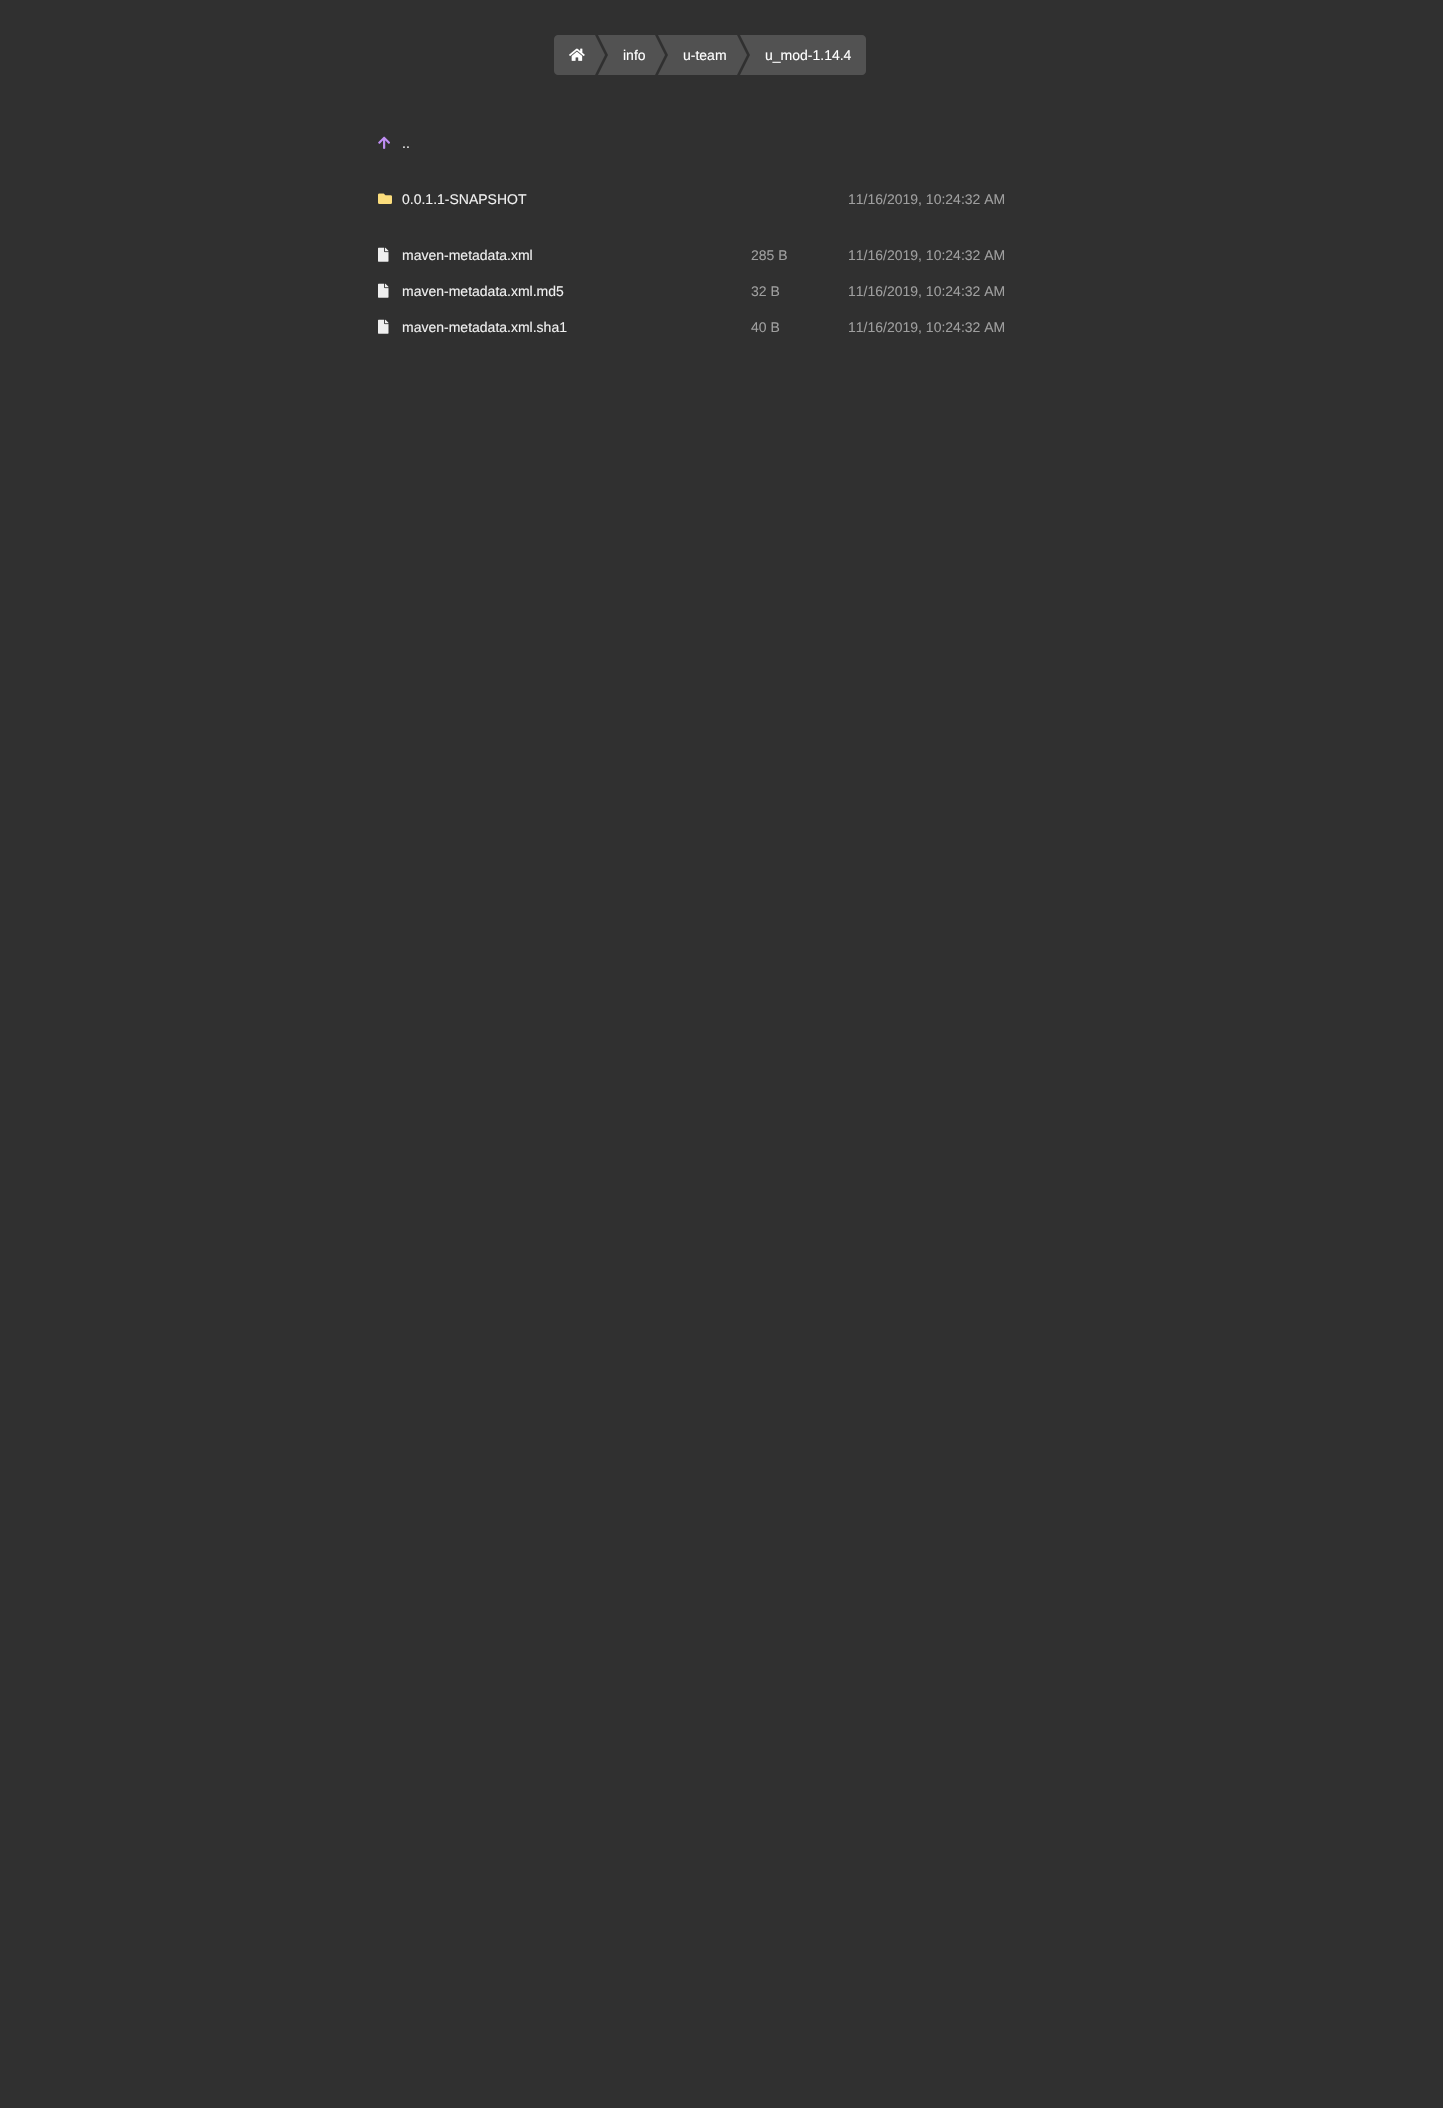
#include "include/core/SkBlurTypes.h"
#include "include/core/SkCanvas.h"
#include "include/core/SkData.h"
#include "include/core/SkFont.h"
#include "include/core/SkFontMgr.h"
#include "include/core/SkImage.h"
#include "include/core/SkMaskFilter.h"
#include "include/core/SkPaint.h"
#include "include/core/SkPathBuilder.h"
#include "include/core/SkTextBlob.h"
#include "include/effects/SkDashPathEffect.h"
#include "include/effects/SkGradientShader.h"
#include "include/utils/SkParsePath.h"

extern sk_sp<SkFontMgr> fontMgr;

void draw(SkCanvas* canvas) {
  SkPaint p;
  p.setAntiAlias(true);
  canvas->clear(SkColorSetRGB(48, 48, 48));
  p.setColor(SkColorSetRGB(81, 81, 81));
  canvas->drawPath(SkPathBuilder().moveTo(558, 35).lineTo(595, 35).lineTo(595, 75).lineTo(558, 75).cubicTo(556, 75, 554, 73, 554, 71).lineTo(554, 39).cubicTo(554, 37, 556, 35, 558, 35).close().detach(), p);
  canvas->drawImageRect(SkImages::DeferredFromEncodedData(SkData::MakeFromFileName("images/1.png")), SkRect::MakeLTRB(569, 48, 585, 61), SkSamplingOptions());
  canvas->drawPath(SkPathBuilder().moveTo(595, 75).lineTo(595, 35).lineTo(605, 55).close().detach(), p);
  p.setColor(SkColorSetRGB(82, 82, 82));
  canvas->drawRect(SkRect::MakeLTRB(618, 35, 655, 75), p);
  canvas->drawPath(SkPathBuilder().moveTo(598, 35).lineTo(618, 35).lineTo(608, 55).close().detach(), p);
  canvas->drawRect(SkRect::MakeLTRB(608, 35, 618, 75), p);
  canvas->drawPath(SkPathBuilder().moveTo(618, 75).lineTo(598, 75).lineTo(608, 55).close().detach(), p);
  canvas->drawPath(SkPathBuilder().moveTo(655, 75).lineTo(655, 35).lineTo(665, 55).close().detach(), p);
  p.setColor(SkColorSetRGB(81, 81, 81));
  canvas->drawRect(SkRect::MakeLTRB(678, 35, 737, 75), p);
  canvas->drawPath(SkPathBuilder().moveTo(658, 35).lineTo(678, 35).lineTo(668, 55).close().detach(), p);
  canvas->drawRect(SkRect::MakeLTRB(668, 35, 678, 75), p);
  canvas->drawPath(SkPathBuilder().moveTo(678, 75).lineTo(658, 75).lineTo(668, 55).close().detach(), p);
  canvas->drawPath(SkPathBuilder().moveTo(737, 75).lineTo(737, 35).lineTo(747, 55).close().detach(), p);
  p.setColor(SkColorSetRGB(82, 82, 82));
  canvas->drawPath(SkPathBuilder().moveTo(760, 35).lineTo(862, 35).cubicTo(864, 35, 866, 37, 866, 39).lineTo(866, 71).cubicTo(866, 73, 864, 75, 862, 75).lineTo(760, 75).close().detach(), p);
  canvas->drawPath(SkPathBuilder().moveTo(740, 35).lineTo(760, 35).lineTo(750, 55).close().detach(), p);
  canvas->drawRect(SkRect::MakeLTRB(750, 35, 760, 75), p);
  canvas->drawPath(SkPathBuilder().moveTo(760, 75).lineTo(740, 75).lineTo(750, 55).close().detach(), p);
  canvas->drawImageRect(SkImages::DeferredFromEncodedData(SkData::MakeFromFileName("images/2.png")), SkRect::MakeLTRB(378, 136, 390, 149), SkSamplingOptions());
  canvas->drawImageRect(SkImages::DeferredFromEncodedData(SkData::MakeFromFileName("images/3.png")), SkRect::MakeLTRB(378, 193, 392, 204), SkSamplingOptions());
  canvas->drawImageRect(SkImages::DeferredFromEncodedData(SkData::MakeFromFileName("images/4.png")), SkRect::MakeLTRB(378, 247, 389, 262), SkSamplingOptions());
  canvas->drawImageRect(SkImages::DeferredFromEncodedData(SkData::MakeFromFileName("images/4.png")), SkRect::MakeLTRB(378, 283, 389, 298), SkSamplingOptions());
  canvas->drawImageRect(SkImages::DeferredFromEncodedData(SkData::MakeFromFileName("images/4.png")), SkRect::MakeLTRB(378, 319, 389, 334), SkSamplingOptions());
  SkFont font1(fontMgr->matchFamilyStyle("Liberation Sans", SkFontStyle::Normal()), 14);
  font1.setSubpixel(true);
  p.setColor(SK_ColorWHITE);
  canvas->drawString("info", 623, 60, font1, p);
  canvas->drawString("u-team", 683, 60, font1, p);
  canvas->drawString("u_mod-1.14.4", 765, 60, font1, p);
  p.setColor(SkColorSetRGB(239, 239, 239));
  canvas->drawString("..", 402, 148, font1, p);
  canvas->drawString("0.0.1.1-SNAPSHOT", 402, 204, font1, p);
  p.setColor(SkColorSetRGB(158, 158, 158));
  canvas->drawString("11/16/2019, 10:24:32 AM", 848, 204, font1, p);
  p.setColor(SkColorSetRGB(239, 239, 239));
  canvas->drawString("maven-metadata.xml", 402, 260, font1, p);
  p.setColor(SkColorSetRGB(158, 158, 158));
  canvas->drawString("285 B", 751, 260, font1, p);
  canvas->drawString("11/16/2019, 10:24:32 AM", 848, 260, font1, p);
  p.setColor(SkColorSetRGB(239, 239, 239));
  canvas->drawString("maven-metadata.xml.md5", 402, 296, font1, p);
  p.setColor(SkColorSetRGB(158, 158, 158));
  canvas->drawString("32 B", 751, 296, font1, p);
  canvas->drawString("11/16/2019, 10:24:32 AM", 848, 296, font1, p);
  p.setColor(SkColorSetRGB(239, 239, 239));
  canvas->drawString("maven-metadata.xml.sha1", 402, 332, font1, p);
  p.setColor(SkColorSetRGB(158, 158, 158));
  canvas->drawString("40 B", 751, 332, font1, p);
  canvas->drawString("11/16/2019, 10:24:32 AM", 848, 332, font1, p);
}
